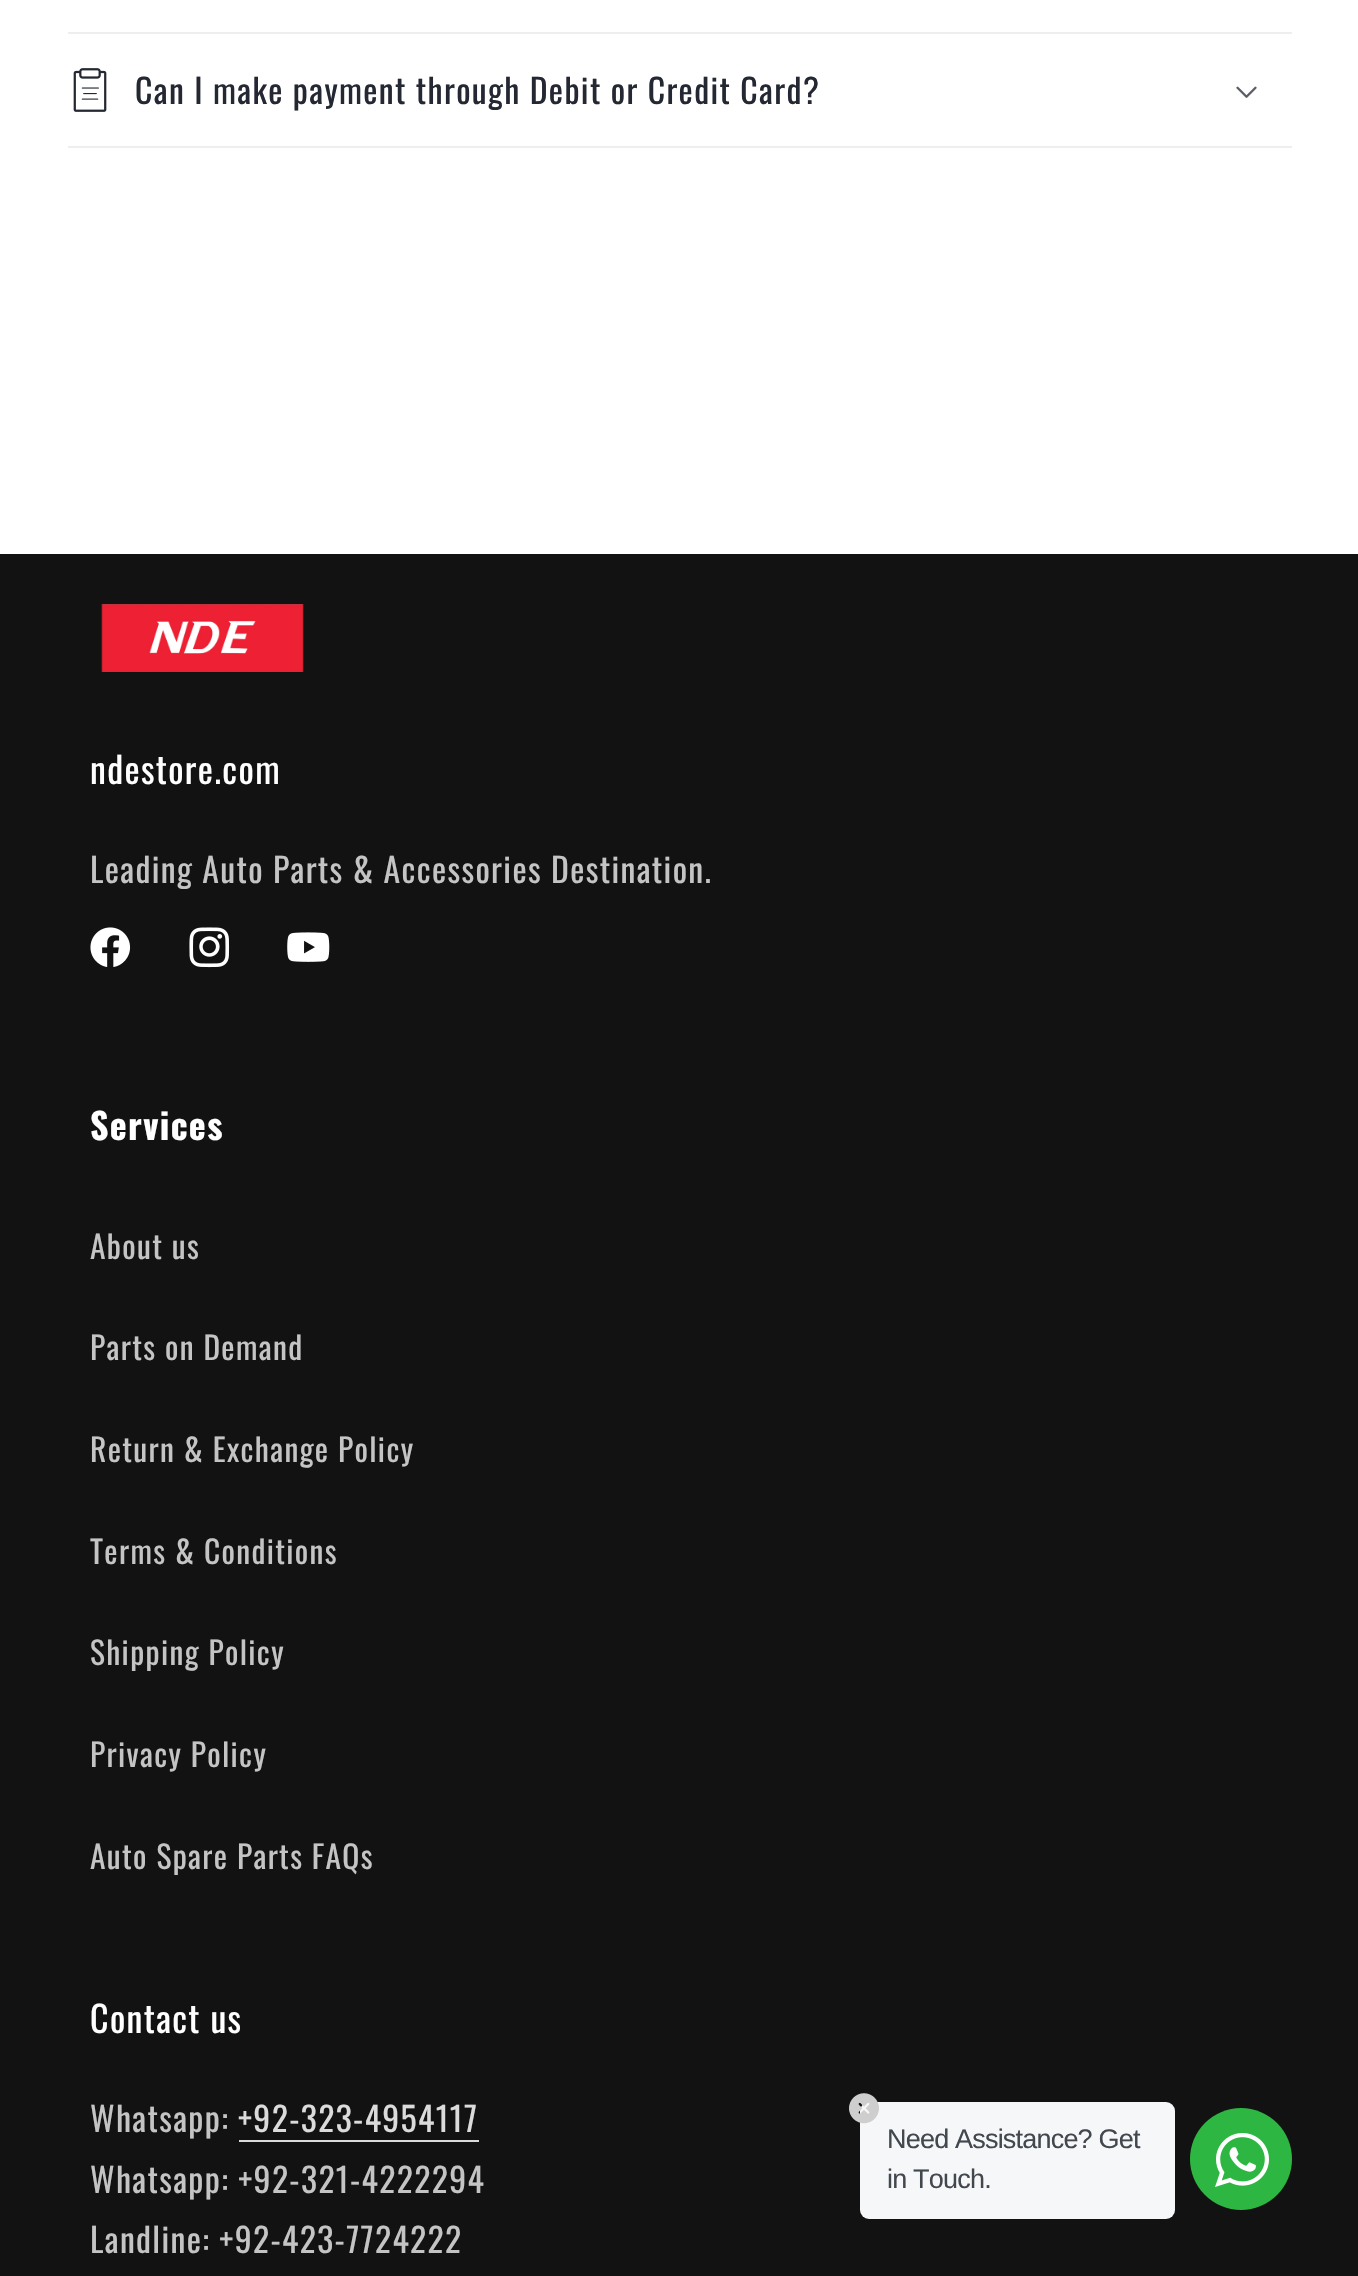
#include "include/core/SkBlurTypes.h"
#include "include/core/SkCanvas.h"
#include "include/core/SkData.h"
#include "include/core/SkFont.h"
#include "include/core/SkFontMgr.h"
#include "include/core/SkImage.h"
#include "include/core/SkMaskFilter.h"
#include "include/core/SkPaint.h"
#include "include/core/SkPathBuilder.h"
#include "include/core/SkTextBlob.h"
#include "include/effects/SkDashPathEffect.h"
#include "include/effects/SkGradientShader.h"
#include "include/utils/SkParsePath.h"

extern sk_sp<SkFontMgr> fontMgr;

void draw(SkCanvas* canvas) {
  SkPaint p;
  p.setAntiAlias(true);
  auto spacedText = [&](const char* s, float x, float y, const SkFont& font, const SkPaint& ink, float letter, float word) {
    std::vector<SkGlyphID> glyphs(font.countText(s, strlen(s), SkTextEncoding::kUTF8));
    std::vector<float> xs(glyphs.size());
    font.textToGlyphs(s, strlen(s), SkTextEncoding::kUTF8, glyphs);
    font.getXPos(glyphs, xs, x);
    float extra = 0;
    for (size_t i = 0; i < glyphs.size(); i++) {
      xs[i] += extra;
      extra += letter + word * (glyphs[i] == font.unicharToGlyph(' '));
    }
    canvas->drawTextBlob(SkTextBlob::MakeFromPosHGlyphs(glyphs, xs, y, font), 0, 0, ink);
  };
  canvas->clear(SK_ColorWHITE);
  p.setColor(SkColorSetRGB(237, 238, 239));
  canvas->drawRect(SkRect::MakeLTRB(68, 32, 1292, 34), p);
  canvas->drawRect(SkRect::MakeLTRB(68, 146, 1292, 148), p);
  canvas->drawImageRect(SkImages::DeferredFromEncodedData(SkData::MakeFromFileName("images/1.png")), SkRect::MakeLTRB(73, 68, 107, 112), SkSamplingOptions());
  canvas->drawImageRect(SkImages::DeferredFromEncodedData(SkData::MakeFromFileName("images/2.png")), SkRect::MakeLTRB(1236, 86, 1257, 98), SkSamplingOptions());
  p.setColor(SkColorSetRGB(18, 18, 18));
  canvas->drawRect(SkRect::MakeLTRB(0, 554, 1358, 2276), p);
  canvas->drawImageRect(SkImages::DeferredFromEncodedData(SkData::MakeFromFileName("images/3.png")), SkRect::MakeLTRB(101, 604, 304, 672), SkSamplingOptions());
  canvas->drawImageRect(SkImages::DeferredFromEncodedData(SkData::MakeFromFileName("images/4.png")), SkRect::MakeLTRB(90, 927, 131, 967), SkSamplingOptions());
  canvas->drawImageRect(SkImages::DeferredFromEncodedData(SkData::MakeFromFileName("images/5.png")), SkRect::MakeLTRB(189, 927, 230, 968), SkSamplingOptions());
  canvas->drawImageRect(SkImages::DeferredFromEncodedData(SkData::MakeFromFileName("images/6.png")), SkRect::MakeLTRB(287, 932, 330, 962), SkSamplingOptions());
  p.setColor(SkColorSetRGB(219, 219, 219));
  canvas->drawRect(SkRect::MakeLTRB(239, 2140, 479, 2142), p);
  p.setColor(SkColorSetRGB(245, 247, 249));
  canvas->drawRoundRect(SkRect::MakeLTRB(860, 2102, 1175, 2219), 9, 9, p);
  canvas->drawImageRect(SkImages::DeferredFromEncodedData(SkData::MakeFromFileName("images/7.png")), SkRect::MakeLTRB(849, 2093, 879, 2124), SkSamplingOptions());
  p.setColor(SkColorSetRGB(45, 183, 66));
  canvas->drawCircle(1241, 2159, 51, p);
  canvas->drawImageRect(SkImages::DeferredFromEncodedData(SkData::MakeFromFileName("images/8.png")), SkRect::MakeLTRB(1215, 2133, 1269, 2187), SkSamplingOptions());
  SkFont font1(fontMgr->matchFamilyStyle("Oswald", SkFontStyle::Normal()), 33.75f);
  font1.setSubpixel(true);
  p.setColor(SkColorSetRGB(36, 40, 51));
  spacedText("Can I make payment through Debit or Credit Card?", 135, 104, font1, p, 1.35f, 0);
  SkFont font2(fontMgr->matchFamilyStyle("Oswald", SkFontStyle::Normal()), 36);
  font2.setSubpixel(true);
  p.setColor(SK_ColorWHITE);
  spacedText("ndestore.com", 90, 784, font2, p, 1.35f, 0);
  p.setColor(SkColorSetRGB(196, 196, 196));
  spacedText("Leading Auto Parts & Accessories Destination.", 90, 883, font1, p, 1.35f, 0);
  SkFont font3(fontMgr->matchFamilyStyle("Oswald", SkFontStyle::Bold()), 36);
  font3.setSubpixel(true);
  p.setColor(SK_ColorWHITE);
  spacedText("Services", 90, 1140, font3, p, 1.35f, 0);
  SkFont font4(fontMgr->matchFamilyStyle("Oswald", SkFontStyle::Normal()), 31.5f);
  font4.setSubpixel(true);
  p.setColor(SkColorSetRGB(196, 196, 196));
  spacedText("About us", 90, 1259, font4, p, 1.35f, 0);
  spacedText("Parts on Demand", 90, 1360, font4, p, 1.35f, 0);
  spacedText("Return & Exchange Policy", 90, 1462, font4, p, 1.35f, 0);
  spacedText("Terms & Conditions", 90, 1564, font4, p, 1.35f, 0);
  spacedText("Shipping Policy", 90, 1665, font4, p, 1.35f, 0);
  spacedText("Privacy Policy", 90, 1767, font4, p, 1.35f, 0);
  spacedText("Auto Spare Parts FAQs", 90, 1869, font4, p, 1.35f, 0);
  p.setColor(SK_ColorWHITE);
  spacedText("Contact us", 90, 2033, font2, p, 1.35f, 0);
  p.setColor(SkColorSetRGB(196, 196, 196));
  spacedText("Whatsapp:", 90, 2132, font1, p, 1.35f, 0);
  p.setColor(SkColorSetRGB(219, 219, 219));
  spacedText("+92-323-4954117", 238, 2132, font1, p, 1.35f, 0);
  p.setColor(SkColorSetRGB(196, 196, 196));
  spacedText("Whatsapp: +92-321-4222294", 90, 2193, font1, p, 1.35f, 0);
  spacedText("Landline: +92-423-7724222", 90, 2253, font1, p, 1.35f, 0);
  SkFont font5(fontMgr->matchFamilyStyle("Liberation Sans", SkFontStyle::Normal()), 27);
  font5.setSubpixel(true);
  p.setColor(SkColorSetRGB(67, 71, 78));
  spacedText("Need Assistance? Get", 887, 2148, font5, p, -0.8f, 0);
  spacedText("in Touch.", 887, 2188, font5, p, -0.8f, 0);
}
